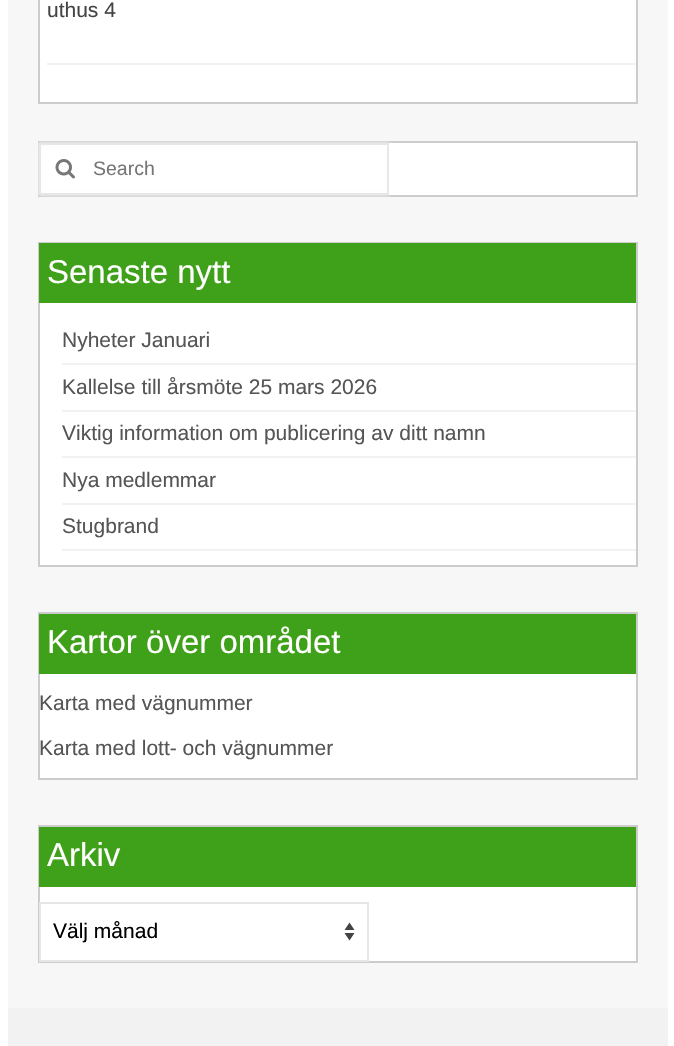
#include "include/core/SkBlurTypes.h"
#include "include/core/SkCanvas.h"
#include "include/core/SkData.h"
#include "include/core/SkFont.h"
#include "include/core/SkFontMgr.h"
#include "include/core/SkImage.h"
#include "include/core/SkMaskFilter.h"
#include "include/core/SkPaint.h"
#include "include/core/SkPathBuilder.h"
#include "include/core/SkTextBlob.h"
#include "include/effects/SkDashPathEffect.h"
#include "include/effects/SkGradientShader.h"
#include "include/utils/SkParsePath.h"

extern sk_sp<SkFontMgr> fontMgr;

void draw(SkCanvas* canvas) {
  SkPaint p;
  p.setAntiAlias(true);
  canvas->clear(SK_ColorWHITE);
  p.setColor(SkColorSetRGB(247, 247, 247));
  canvas->drawRect(SkRect::MakeLTRB(8, 0, 668, 1008), p);
  p.setColor(SK_ColorWHITE);
  canvas->drawRect(SkRect::MakeLTRB(39, -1, 637, 103), p);
  p.setStyle(SkPaint::kStroke_Style);
  p.setStrokeWidth(2);
  p.setColor(SkColorSetRGB(204, 204, 204));
  canvas->drawRect(SkRect::MakeLTRB(39, -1, 637, 103), p);
  p.setStyle(SkPaint::kFill_Style);
  p.setColor(SkColorSetRGB(242, 242, 242));
  canvas->drawRect(SkRect::MakeLTRB(47, 63, 636, 65), p);
  p.setColor(SK_ColorWHITE);
  canvas->drawRect(SkRect::MakeLTRB(389, 143, 636, 195), p);
  p.setStyle(SkPaint::kStroke_Style);
  p.setColor(SkColorSetRGB(204, 204, 204));
  canvas->drawRect(SkRect::MakeLTRB(39, 142, 637, 196), p);
  p.setStyle(SkPaint::kFill_Style);
  p.setColor(SK_ColorWHITE);
  p.setMaskFilter(SkMaskFilter::MakeBlur(kNormal_SkBlurStyle, 2));
  canvas->drawRect(SkRect::MakeLTRB(39, 143, 389, 195), p);
  p.setMaskFilter(nullptr);
  p.setStyle(SkPaint::kStroke_Style);
  p.setColor(SkColorSetRGB(231, 231, 231));
  canvas->drawRect(SkRect::MakeLTRB(40, 144, 388, 194), p);
  canvas->drawImageRect(SkImages::DeferredFromEncodedData(SkData::MakeFromFileName("images/1.png")), SkRect::MakeLTRB(55, 159, 75, 179), SkSamplingOptions());
  p.setStyle(SkPaint::kFill_Style);
  p.setColor(SK_ColorWHITE);
  canvas->drawRect(SkRect::MakeLTRB(40, 303, 636, 565), p);
  p.setStyle(SkPaint::kStroke_Style);
  p.setColor(SkColorSetRGB(204, 204, 204));
  canvas->drawRect(SkRect::MakeLTRB(39, 243, 637, 566), p);
  p.setStyle(SkPaint::kFill_Style);
  p.setColor(SkColorSetRGB(63, 160, 25));
  canvas->drawRect(SkRect::MakeLTRB(39, 243, 636, 303), p);
  p.setColor(SkColorSetRGB(242, 242, 242));
  canvas->drawRect(SkRect::MakeLTRB(62, 363, 636, 365), p);
  canvas->drawRect(SkRect::MakeLTRB(62, 410, 636, 412), p);
  canvas->drawRect(SkRect::MakeLTRB(62, 456, 636, 458), p);
  canvas->drawRect(SkRect::MakeLTRB(62, 503, 636, 505), p);
  canvas->drawRect(SkRect::MakeLTRB(62, 549, 636, 551), p);
  p.setColor(SK_ColorWHITE);
  canvas->drawRect(SkRect::MakeLTRB(40, 674, 636, 778), p);
  p.setStyle(SkPaint::kStroke_Style);
  p.setColor(SkColorSetRGB(204, 204, 204));
  canvas->drawRect(SkRect::MakeLTRB(39, 613, 637, 779), p);
  p.setStyle(SkPaint::kFill_Style);
  p.setColor(SkColorSetRGB(63, 160, 25));
  canvas->drawRect(SkRect::MakeLTRB(39, 614, 636, 674), p);
  p.setColor(SK_ColorWHITE);
  canvas->drawRect(SkRect::MakeLTRB(40, 887, 636, 961), p);
  p.setStyle(SkPaint::kStroke_Style);
  p.setColor(SkColorSetRGB(204, 204, 204));
  canvas->drawRect(SkRect::MakeLTRB(39, 826, 637, 962), p);
  p.setStyle(SkPaint::kFill_Style);
  p.setColor(SkColorSetRGB(63, 160, 25));
  canvas->drawRect(SkRect::MakeLTRB(39, 827, 636, 887), p);
  p.setColor(SkColorSetRGB(68, 68, 68));
  canvas->drawPath(SkPathBuilder().moveTo(344.5f, 930).lineTo(349.5f, 922.5f).lineTo(354.5f, 930).close().moveTo(354.5f, 933).lineTo(349.5f, 940.5f).lineTo(344.5f, 933).close().detach(), p);
  p.setStyle(SkPaint::kStroke_Style);
  p.setColor(SkColorSetRGB(230, 230, 230));
  canvas->drawRect(SkRect::MakeLTRB(40, 903, 368, 961), p);
  p.setStyle(SkPaint::kFill_Style);
  p.setColor(SkColorSetRGB(242, 242, 242));
  canvas->drawRect(SkRect::MakeLTRB(8, 1008, 668, 1046), p);
  SkFont font1(fontMgr->matchFamilyStyle("Liberation Sans", SkFontStyle::Normal()), 21);
  font1.setSubpixel(true);
  p.setColor(SkColorSetRGB(68, 68, 68));
  canvas->drawString("uthus 4", 47, 17, font1, p);
  SkFont font2(fontMgr->matchFamilyStyle("Liberation Sans", SkFontStyle::Normal()), 19.5f);
  font2.setSubpixel(true);
  p.setColor(SkColorSetRGB(117, 117, 117));
  canvas->drawString("Search", 93, 175, font2, p);
  SkFont font3(fontMgr->matchFamilyStyle("Liberation Sans", SkFontStyle::Normal()), 33);
  font3.setSubpixel(true);
  p.setColor(SK_ColorWHITE);
  canvas->drawString("Senaste nytt", 47, 283, font3, p);
  p.setColor(SkColorSetRGB(85, 85, 85));
  canvas->drawString("Nyheter Januari", 62, 347, font1, p);
  canvas->drawString("Kallelse till årsmöte 25 mars 2026", 62, 394, font1, p);
  canvas->drawString("Viktig information om publicering av ditt namn", 62, 440, font1, p);
  canvas->drawString("Nya medlemmar", 62, 487, font1, p);
  canvas->drawString("Stugbrand", 62, 533, font1, p);
  p.setColor(SK_ColorWHITE);
  canvas->drawString("Kartor över området", 47, 653, font3, p);
  p.setColor(SkColorSetRGB(85, 85, 85));
  canvas->drawString("Karta med vägnummer", 39, 710, font1, p);
  canvas->drawString("Karta med lott- och vägnummer", 39, 755, font1, p);
  p.setColor(SK_ColorWHITE);
  canvas->drawString("Arkiv", 47, 866, font3, p);
  p.setColor(SK_ColorBLACK);
  canvas->drawString("Välj månad", 53, 938, font1, p);
}
